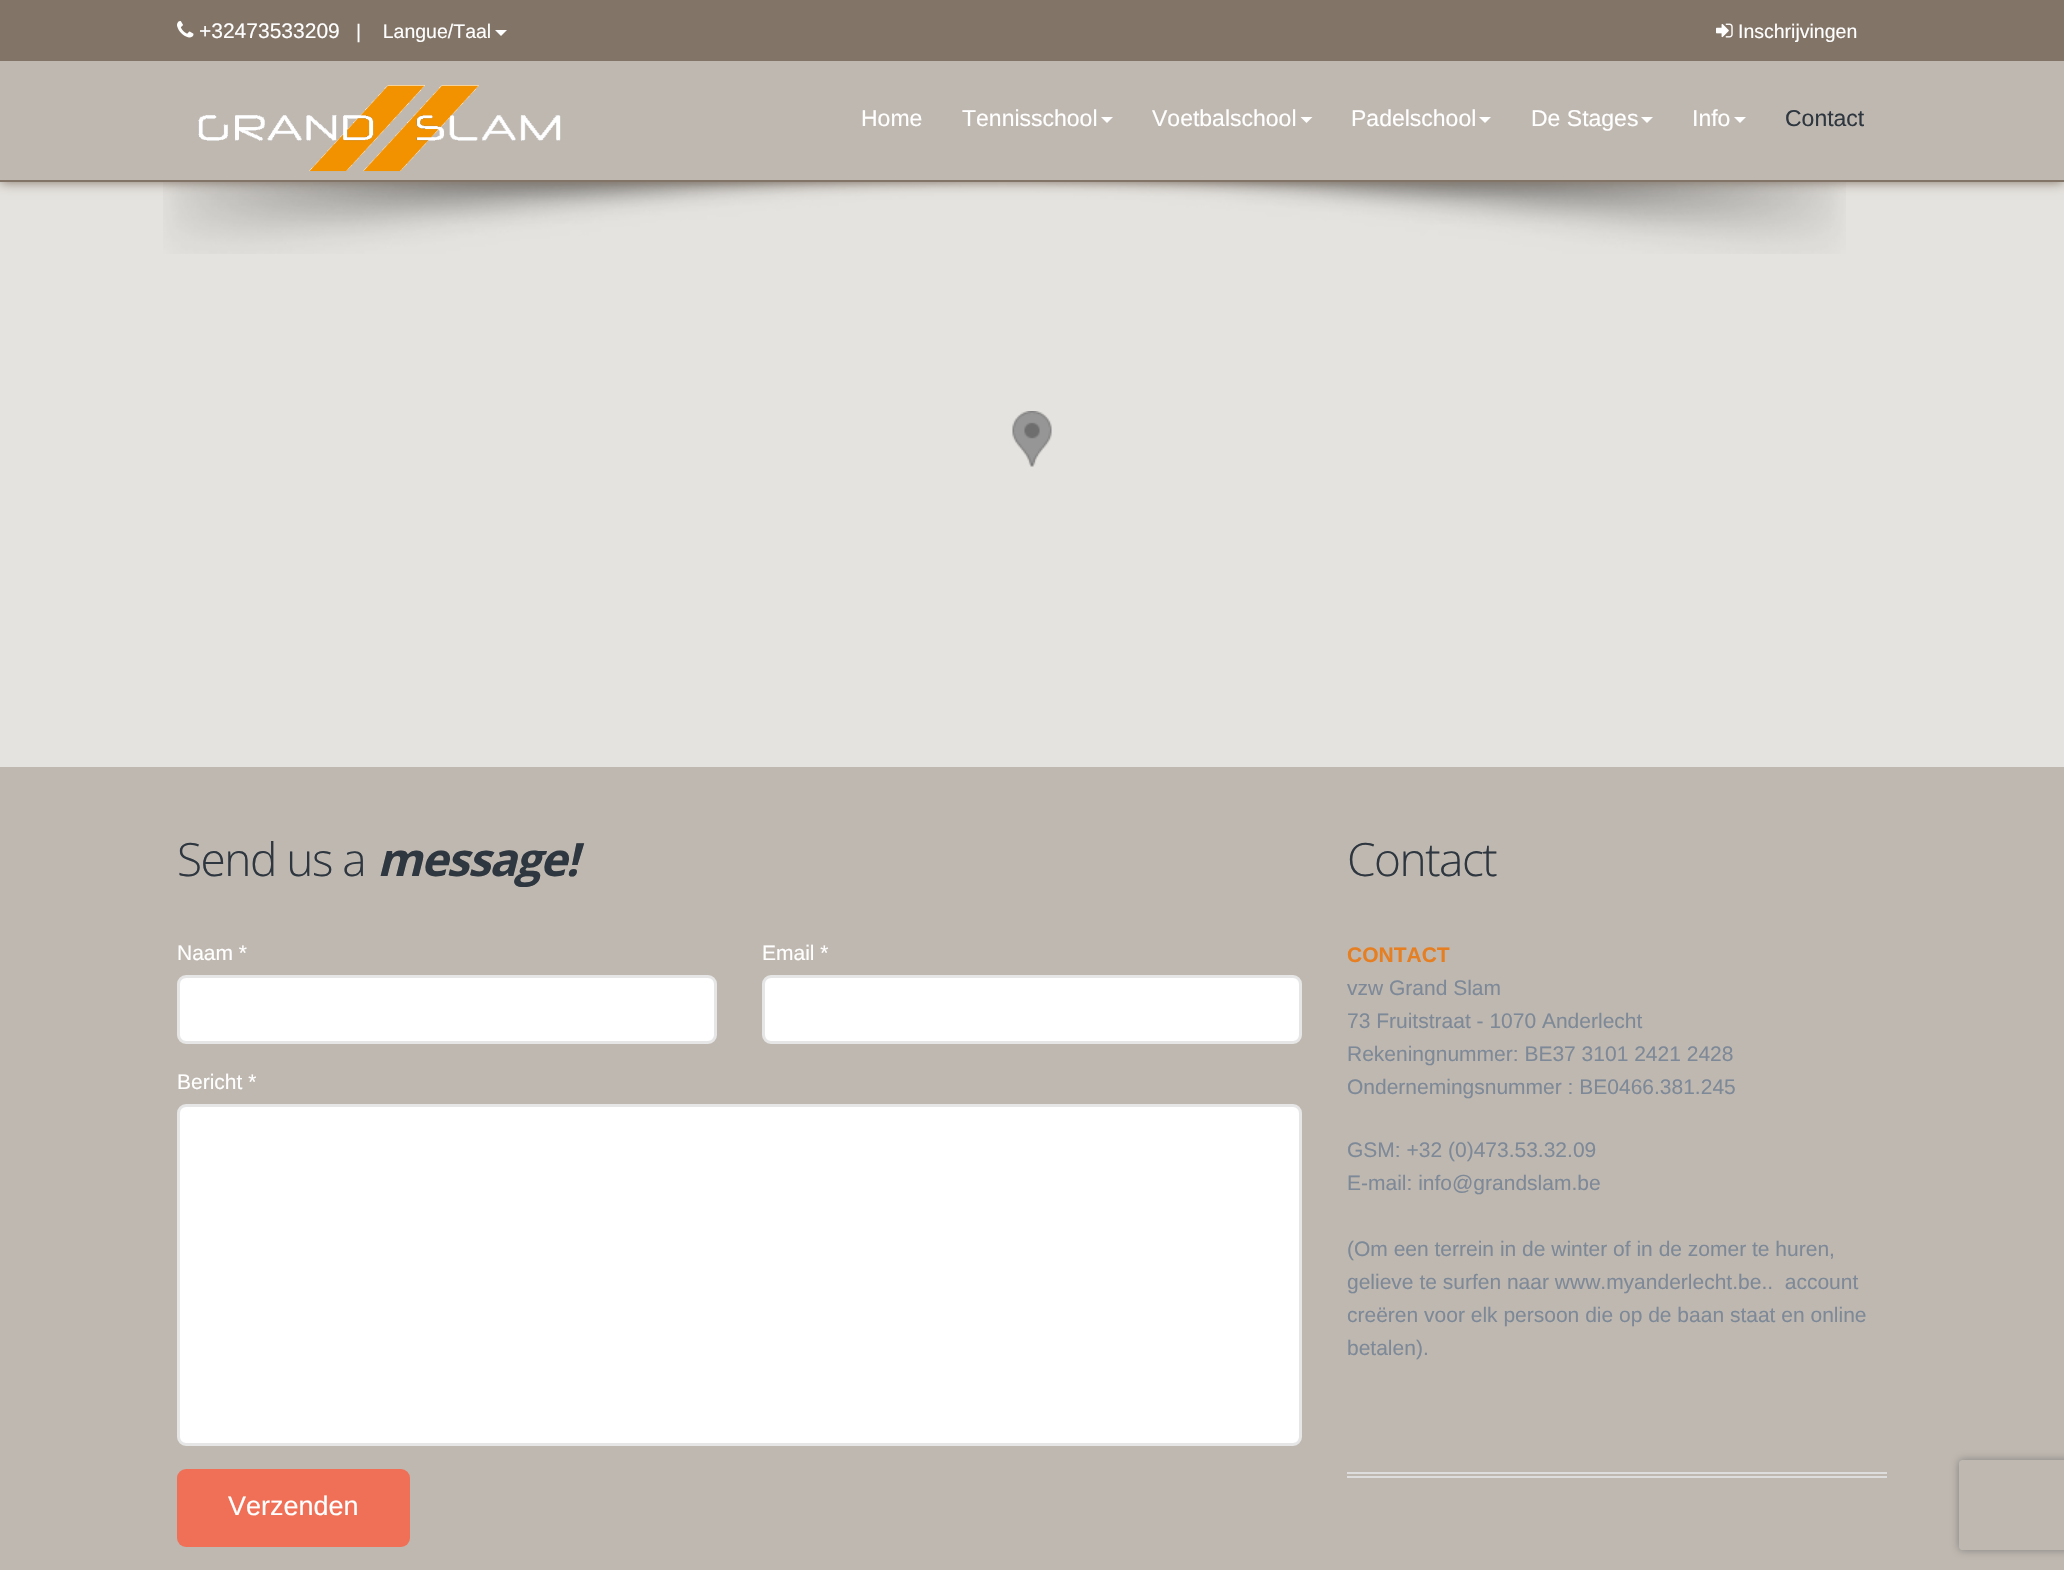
#include "include/core/SkBlurTypes.h"
#include "include/core/SkCanvas.h"
#include "include/core/SkData.h"
#include "include/core/SkFont.h"
#include "include/core/SkFontMgr.h"
#include "include/core/SkImage.h"
#include "include/core/SkMaskFilter.h"
#include "include/core/SkPaint.h"
#include "include/core/SkPathBuilder.h"
#include "include/core/SkTextBlob.h"
#include "include/effects/SkDashPathEffect.h"
#include "include/effects/SkGradientShader.h"
#include "include/utils/SkParsePath.h"

extern sk_sp<SkFontMgr> fontMgr;

void draw(SkCanvas* canvas) {
  SkPaint p;
  p.setAntiAlias(true);
  auto spacedText = [&](const char* s, float x, float y, const SkFont& font, const SkPaint& ink, float letter, float word) {
    std::vector<SkGlyphID> glyphs(font.countText(s, strlen(s), SkTextEncoding::kUTF8));
    std::vector<float> xs(glyphs.size());
    font.textToGlyphs(s, strlen(s), SkTextEncoding::kUTF8, glyphs);
    font.getXPos(glyphs, xs, x);
    float extra = 0;
    for (size_t i = 0; i < glyphs.size(); i++) {
      xs[i] += extra;
      extra += letter + word * (glyphs[i] == font.unicharToGlyph(' '));
    }
    canvas->drawTextBlob(SkTextBlob::MakeFromPosHGlyphs(glyphs, xs, y, font), 0, 0, ink);
  };
  canvas->clear(SkColorSetRGB(191, 184, 176));
  p.setColor(SkColorSetRGB(229, 227, 223));
  canvas->drawRect(SkRect::MakeLTRB(0, 182, 2064, 767), p);
  canvas->drawImageRect(SkImages::DeferredFromEncodedData(SkData::MakeFromFileName("images/4.png")), SkRect::MakeLTRB(163, 182, 1846, 254), SkSamplingOptions());
  p.setColor(SkColorSetRGB(130, 116, 103));
  p.setMaskFilter(SkMaskFilter::MakeBlur(kNormal_SkBlurStyle, 6));
  canvas->drawRect(SkRect::MakeLTRB(0, 60, 2064, 182), p);
  p.setMaskFilter(nullptr);
  canvas->drawRect(SkRect::MakeLTRB(0, 0, 2064, 61), p);
  canvas->drawImageRect(SkImages::DeferredFromEncodedData(SkData::MakeFromFileName("images/1.png")), SkRect::MakeLTRB(177, 21, 194, 38), SkSamplingOptions());
  p.setColor(SK_ColorWHITE);
  canvas->drawPath(SkPathBuilder().moveTo(495, 30).lineTo(507, 30).lineTo(501, 36).close().detach(), p);
  canvas->drawImageRect(SkImages::DeferredFromEncodedData(SkData::MakeFromFileName("images/2.png")), SkRect::MakeLTRB(1716, 23, 1733, 38), SkSamplingOptions());
  p.setColor(SkColorSetRGB(191, 184, 176));
  canvas->drawRect(SkRect::MakeLTRB(0, 61, 2064, 180), p);
  p.setColor(SkColorSetRGB(130, 116, 103));
  canvas->drawRect(SkRect::MakeLTRB(0, 180, 2064, 182), p);
  canvas->drawImageRect(SkImages::DeferredFromEncodedData(SkData::MakeFromFileName("images/3.png")), SkRect::MakeLTRB(198, 85, 561, 172), SkSamplingOptions());
  p.setColor(SK_ColorWHITE);
  canvas->drawPath(SkPathBuilder().moveTo(1101, 117).lineTo(1113, 117).lineTo(1107, 123).close().detach(), p);
  canvas->drawPath(SkPathBuilder().moveTo(1300.5f, 117).lineTo(1312.5f, 117).lineTo(1306.5f, 123).close().detach(), p);
  canvas->drawPath(SkPathBuilder().moveTo(1479, 117).lineTo(1491, 117).lineTo(1485, 123).close().detach(), p);
  canvas->drawPath(SkPathBuilder().moveTo(1641, 117).lineTo(1653, 117).lineTo(1647, 123).close().detach(), p);
  canvas->drawPath(SkPathBuilder().moveTo(1734, 117).lineTo(1746, 117).lineTo(1740, 123).close().detach(), p);
  canvas->drawImageRect(SkImages::DeferredFromEncodedData(SkData::MakeFromFileName("images/5.png")), SkRect::MakeLTRB(1012, 411, 1052, 467), SkSamplingOptions());
  canvas->drawRoundRect(SkRect::MakeLTRB(178.5f, 976.5f, 715.5f, 1042.5f), 7.5f, 7.5f, p);
  p.setStyle(SkPaint::kStroke_Style);
  p.setStrokeWidth(3);
  p.setColor(SkColorSetRGB(230, 230, 230));
  canvas->drawRoundRect(SkRect::MakeLTRB(178.5f, 976.5f, 715.5f, 1042.5f), 7.5f, 7.5f, p);
  p.setStyle(SkPaint::kFill_Style);
  p.setColor(SK_ColorWHITE);
  canvas->drawRoundRect(SkRect::MakeLTRB(763.5f, 976.5f, 1300.5f, 1042.5f), 7.5f, 7.5f, p);
  p.setStyle(SkPaint::kStroke_Style);
  p.setColor(SkColorSetRGB(230, 230, 230));
  canvas->drawRoundRect(SkRect::MakeLTRB(763.5f, 976.5f, 1300.5f, 1042.5f), 7.5f, 7.5f, p);
  p.setStyle(SkPaint::kFill_Style);
  p.setColor(SK_ColorWHITE);
  canvas->drawRoundRect(SkRect::MakeLTRB(178.5f, 1105.5f, 1300.5f, 1444.5f), 7.5f, 7.5f, p);
  p.setStyle(SkPaint::kStroke_Style);
  p.setColor(SkColorSetRGB(230, 230, 230));
  canvas->drawRoundRect(SkRect::MakeLTRB(178.5f, 1105.5f, 1300.5f, 1444.5f), 7.5f, 7.5f, p);
  p.setStyle(SkPaint::kFill_Style);
  p.setColor(SkColorSetRGB(240, 112, 87));
  canvas->drawRoundRect(SkRect::MakeLTRB(177, 1469, 410, 1547), 9, 9, p);
  canvas->save();
  canvas->clipPath(SkPathBuilder(SkPathFillType::kEvenOdd).moveTo(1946, 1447).lineTo(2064, 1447).lineTo(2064, 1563).lineTo(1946, 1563).close().moveTo(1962, 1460).lineTo(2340, 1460).cubicTo(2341.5f, 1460, 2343, 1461.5f, 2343, 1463).lineTo(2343, 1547).cubicTo(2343, 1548.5f, 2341.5f, 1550, 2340, 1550).lineTo(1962, 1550).cubicTo(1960.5f, 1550, 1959, 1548.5f, 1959, 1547).lineTo(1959, 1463).cubicTo(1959, 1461.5f, 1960.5f, 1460, 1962, 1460).close().detach(), true);
  p.setColor(SkColorSetRGB(128, 128, 128));
  p.setMaskFilter(SkMaskFilter::MakeBlur(kNormal_SkBlurStyle, 4));
  canvas->drawRoundRect(SkRect::MakeLTRB(1959, 1460, 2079, 1550), 3, 3, p);
  p.setMaskFilter(nullptr);
  canvas->restore();
  p.setColor(SkColorSetRGB(221, 221, 221));
  canvas->drawRect(SkRect::MakeLTRB(1347, 1472, 1887, 1474), p);
  canvas->drawRect(SkRect::MakeLTRB(1347, 1476, 1887, 1478), p);
  SkFont font1(fontMgr->matchFamilyStyle("Liberation Sans", SkFontStyle::Normal()), 21);
  font1.setSubpixel(true);
  p.setColor(SK_ColorWHITE);
  canvas->drawString("+32473533209", 199, 38, font1, p);
  SkFont font2(fontMgr->matchFamilyStyle("Liberation Sans", SkFontStyle::Normal()), 19.5f);
  font2.setSubpixel(true);
  canvas->drawString("|    Langue/Taal", 356, 38, font2, p);
  canvas->drawString("Inschrijvingen", 1738, 38, font2, p);
  SkFont font3(fontMgr->matchFamilyStyle("Liberation Sans", SkFontStyle::Normal()), 23);
  font3.setSubpixel(true);
  canvas->drawString("Home", 861, 126, font3, p);
  canvas->drawString("Tennisschool", 962, 126, font3, p);
  canvas->drawString("Voetbalschool", 1152, 126, font3, p);
  canvas->drawString("Padelschool", 1351, 126, font3, p);
  canvas->drawString("De Stages", 1531, 126, font3, p);
  canvas->drawString("Info", 1692, 126, font3, p);
  p.setColor(SkColorSetRGB(46, 54, 63));
  canvas->drawString("Contact", 1785, 126, font3, p);
  SkFont font4(fontMgr->matchFamilyStyle("Open Sans", SkFontStyle(300, SkFontStyle::kNormal_Width, SkFontStyle::kUpright_Slant)), 46);
  font4.setSubpixel(true);
  spacedText("Send us a", 177, 876, font4, p, -1.5f, 0);
  SkFont font5(fontMgr->matchFamilyStyle("Open Sans", SkFontStyle::BoldItalic()), 46);
  font5.setSubpixel(true);
  spacedText("message!", 377, 876, font5, p, -1.5f, 0);
  p.setColor(SK_ColorWHITE);
  canvas->drawString("Naam *", 177, 960, font1, p);
  canvas->drawString("Email *", 762, 960, font1, p);
  canvas->drawString("Bericht *", 177, 1089, font1, p);
  SkFont font6(fontMgr->matchFamilyStyle("Liberation Sans", SkFontStyle::Normal()), 27);
  font6.setSubpixel(true);
  canvas->drawString("Verzenden", 228, 1515, font6, p);
  p.setColor(SkColorSetRGB(46, 54, 63));
  spacedText("Contact", 1347, 876, font4, p, -1.5f, 0);
  SkFont font7(fontMgr->matchFamilyStyle("Liberation Sans", SkFontStyle::Bold()), 21);
  font7.setSubpixel(true);
  p.setColor(SkColorSetRGB(230, 126, 34));
  canvas->drawString("CONTACT", 1347, 962, font7, p);
  p.setColor(SkColorSetRGB(126, 137, 152));
  canvas->drawString("vzw Grand Slam", 1347, 995, font1, p);
  canvas->drawString("73 Fruitstraat - 1070 Anderlecht", 1347, 1028, font1, p);
  canvas->drawString("Rekeningnummer: BE37 3101 2421 2428", 1347, 1061, font1, p);
  canvas->drawString("Ondernemingsnummer : BE0466.381.245", 1347, 1094, font1, p);
  canvas->drawString("GSM: +32 (0)473.53.32.09", 1347, 1157, font1, p);
  canvas->drawString("E-mail: info@grandslam.be", 1347, 1190, font1, p);
  canvas->drawString("(Om een terrein in de winter of in de zomer te huren,", 1347, 1256, font1, p);
  canvas->drawString("gelieve te surfen naar www.myanderlecht.be..  account", 1347, 1289, font1, p);
  canvas->drawString("creëren voor elk persoon die op de baan staat en online", 1347, 1322, font1, p);
  canvas->drawString("betalen).", 1347, 1355, font1, p);
}
